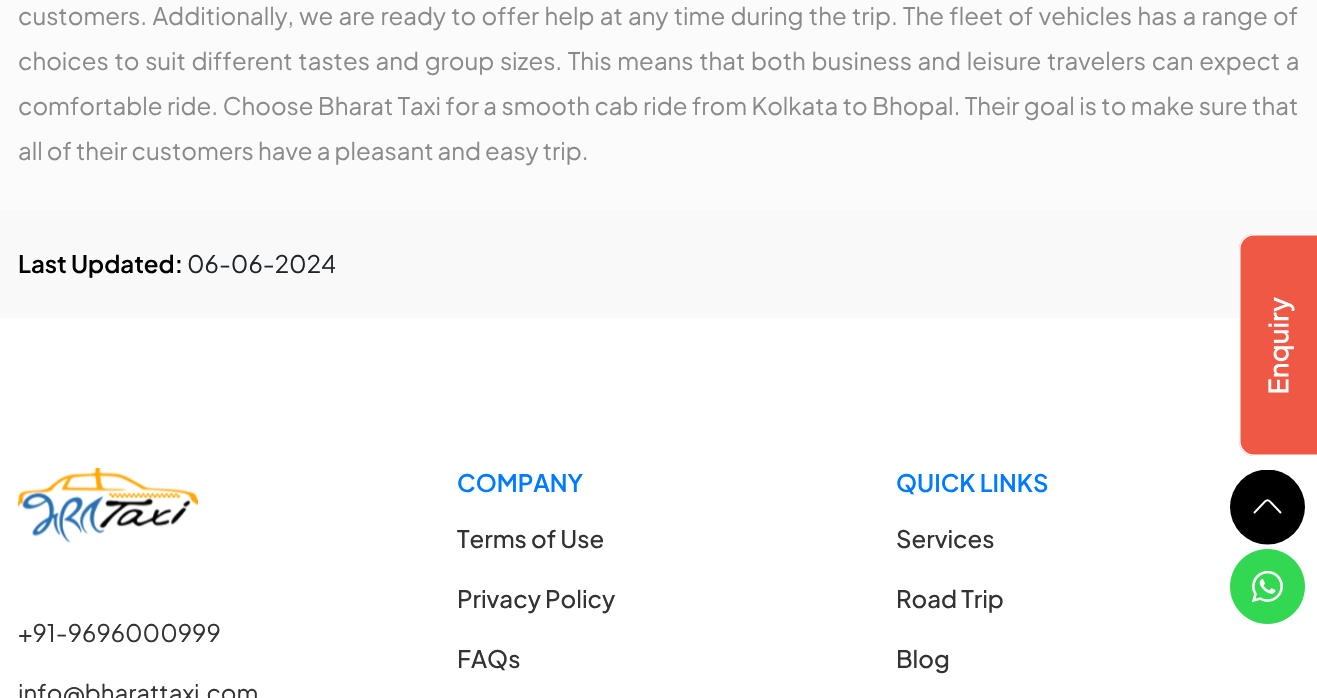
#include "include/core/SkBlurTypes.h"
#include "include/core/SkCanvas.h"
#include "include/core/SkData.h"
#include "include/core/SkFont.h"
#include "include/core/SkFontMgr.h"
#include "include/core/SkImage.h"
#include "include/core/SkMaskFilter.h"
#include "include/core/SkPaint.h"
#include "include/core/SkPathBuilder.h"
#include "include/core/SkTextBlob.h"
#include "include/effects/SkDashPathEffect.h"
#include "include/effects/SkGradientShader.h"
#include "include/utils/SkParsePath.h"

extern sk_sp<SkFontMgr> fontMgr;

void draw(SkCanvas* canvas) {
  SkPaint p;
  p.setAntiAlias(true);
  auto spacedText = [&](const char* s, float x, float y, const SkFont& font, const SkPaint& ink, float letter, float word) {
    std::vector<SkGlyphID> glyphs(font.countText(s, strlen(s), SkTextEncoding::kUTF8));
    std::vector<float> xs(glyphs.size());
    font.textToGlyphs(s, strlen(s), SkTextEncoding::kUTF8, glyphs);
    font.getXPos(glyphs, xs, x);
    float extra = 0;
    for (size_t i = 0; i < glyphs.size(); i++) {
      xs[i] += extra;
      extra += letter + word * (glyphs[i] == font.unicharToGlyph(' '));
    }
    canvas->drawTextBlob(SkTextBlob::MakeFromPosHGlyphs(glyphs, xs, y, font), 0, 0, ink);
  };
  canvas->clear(SK_ColorWHITE);
  p.setColor(SkColorSetRGB(249, 249, 249));
  canvas->drawRect(SkRect::MakeLTRB(0, 210, 1317, 318), p);
  p.setColor(SkColorSetRGB(251, 251, 251));
  canvas->drawRect(SkRect::MakeLTRB(0, 0, 1317, 210), p);
  canvas->drawImageRect(SkImages::DeferredFromEncodedData(SkData::MakeFromFileName("images/1.png")), SkRect::MakeLTRB(1239, 234, 1317, 456), SkSamplingOptions());
  canvas->drawImageRect(SkImages::DeferredFromEncodedData(SkData::MakeFromFileName("images/2.png")), SkRect::MakeLTRB(18, 468, 198, 543), SkSamplingOptions());
  canvas->save();
  canvas->clipRect(SkRect::MakeLTRB(1230, 470, 1305, 545));
  p.setColor(SK_ColorBLACK);
  canvas->drawCircle(1267.5f, 507, 37.5f, p);
  canvas->restore();
  p.setStyle(SkPaint::kStroke_Style);
  p.setStrokeWidth(1.9f);
  p.setStrokeCap(SkPaint::kRound_Cap);
  p.setStrokeJoin(SkPaint::kRound_Join);
  p.setColor(SK_ColorWHITE);
  canvas->drawPath(SkPathBuilder().moveTo(1280.5f, 512.5f).lineTo(1270, 501.5f).cubicTo(1268.5f, 500, 1266.5f, 500, 1265, 501.5f).lineTo(1254.5f, 512.5f).detach(), p);
  canvas->drawImageRect(SkImages::DeferredFromEncodedData(SkData::MakeFromFileName("images/3.png")), SkRect::MakeLTRB(1230, 549, 1305, 624), SkSamplingOptions());
  SkFont font1(fontMgr->matchFamilyStyle("Plus Jakarta Sans", SkFontStyle::Normal()), 24);
  font1.setSubpixel(true);
  p.setStyle(SkPaint::kFill_Style);
  p.setColor(SkColorSetRGB(138, 138, 138));
  spacedText("customers. Additionally, we are ready to offer help at any time during the trip. The fleet of vehicles has a range of", 18, 25, font1, p, 0, 1.25f);
  spacedText("choices to suit different tastes and group sizes. This means that both business and leisure travelers can expect a", 18, 70, font1, p, 0, 1.6f);
  spacedText("comfortable ride. Choose Bharat Taxi for a smooth cab ride from Kolkata to Bhopal. Their goal is to make sure that", 18, 115, font1, p, 0, 0.4f);
  canvas->drawString("all of their customers have a pleasant and easy trip.", 18, 160, font1, p);
  SkFont font2(fontMgr->matchFamilyStyle("Plus Jakarta Sans", SkFontStyle(600, SkFontStyle::kNormal_Width, SkFontStyle::kUpright_Slant)), 24);
  font2.setSubpixel(true);
  p.setColor(SK_ColorBLACK);
  canvas->drawString("Last Updated:", 18, 273, font2, p);
  p.setColor(SkColorSetRGB(33, 37, 41));
  canvas->drawString("06-06-2024", 187, 273, font1, p);
  SkFont font3(fontMgr->matchFamilyStyle("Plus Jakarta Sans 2", SkFontStyle::Normal()), 24);
  font3.setSubpixel(true);
  p.setColor(SkColorSetRGB(51, 51, 51));
  canvas->drawString("+91-9696000999", 18, 642, font3, p);
  canvas->drawString("info@bharattaxi.com", 18, 702, font3, p);
  p.setColor(SkColorSetRGB(0, 123, 255));
  canvas->drawString("COMPANY", 457, 492, font2, p);
  SkFont font4(fontMgr->matchFamilyStyle("Plus Jakarta Sans", SkFontStyle(500, SkFontStyle::kNormal_Width, SkFontStyle::kUpright_Slant)), 24);
  font4.setSubpixel(true);
  p.setColor(SkColorSetRGB(51, 51, 51));
  canvas->drawString("Terms of Use", 457, 548, font4, p);
  canvas->drawString("Privacy Policy", 457, 608, font4, p);
  canvas->drawString("FAQs", 457, 668, font4, p);
  p.setColor(SkColorSetRGB(0, 123, 255));
  canvas->drawString("QUICK LINKS", 896, 492, font2, p);
  p.setColor(SkColorSetRGB(51, 51, 51));
  canvas->drawString("Services", 896, 548, font4, p);
  canvas->drawString("Road Trip", 896, 608, font4, p);
  canvas->drawString("Blog", 896, 668, font4, p);
}
